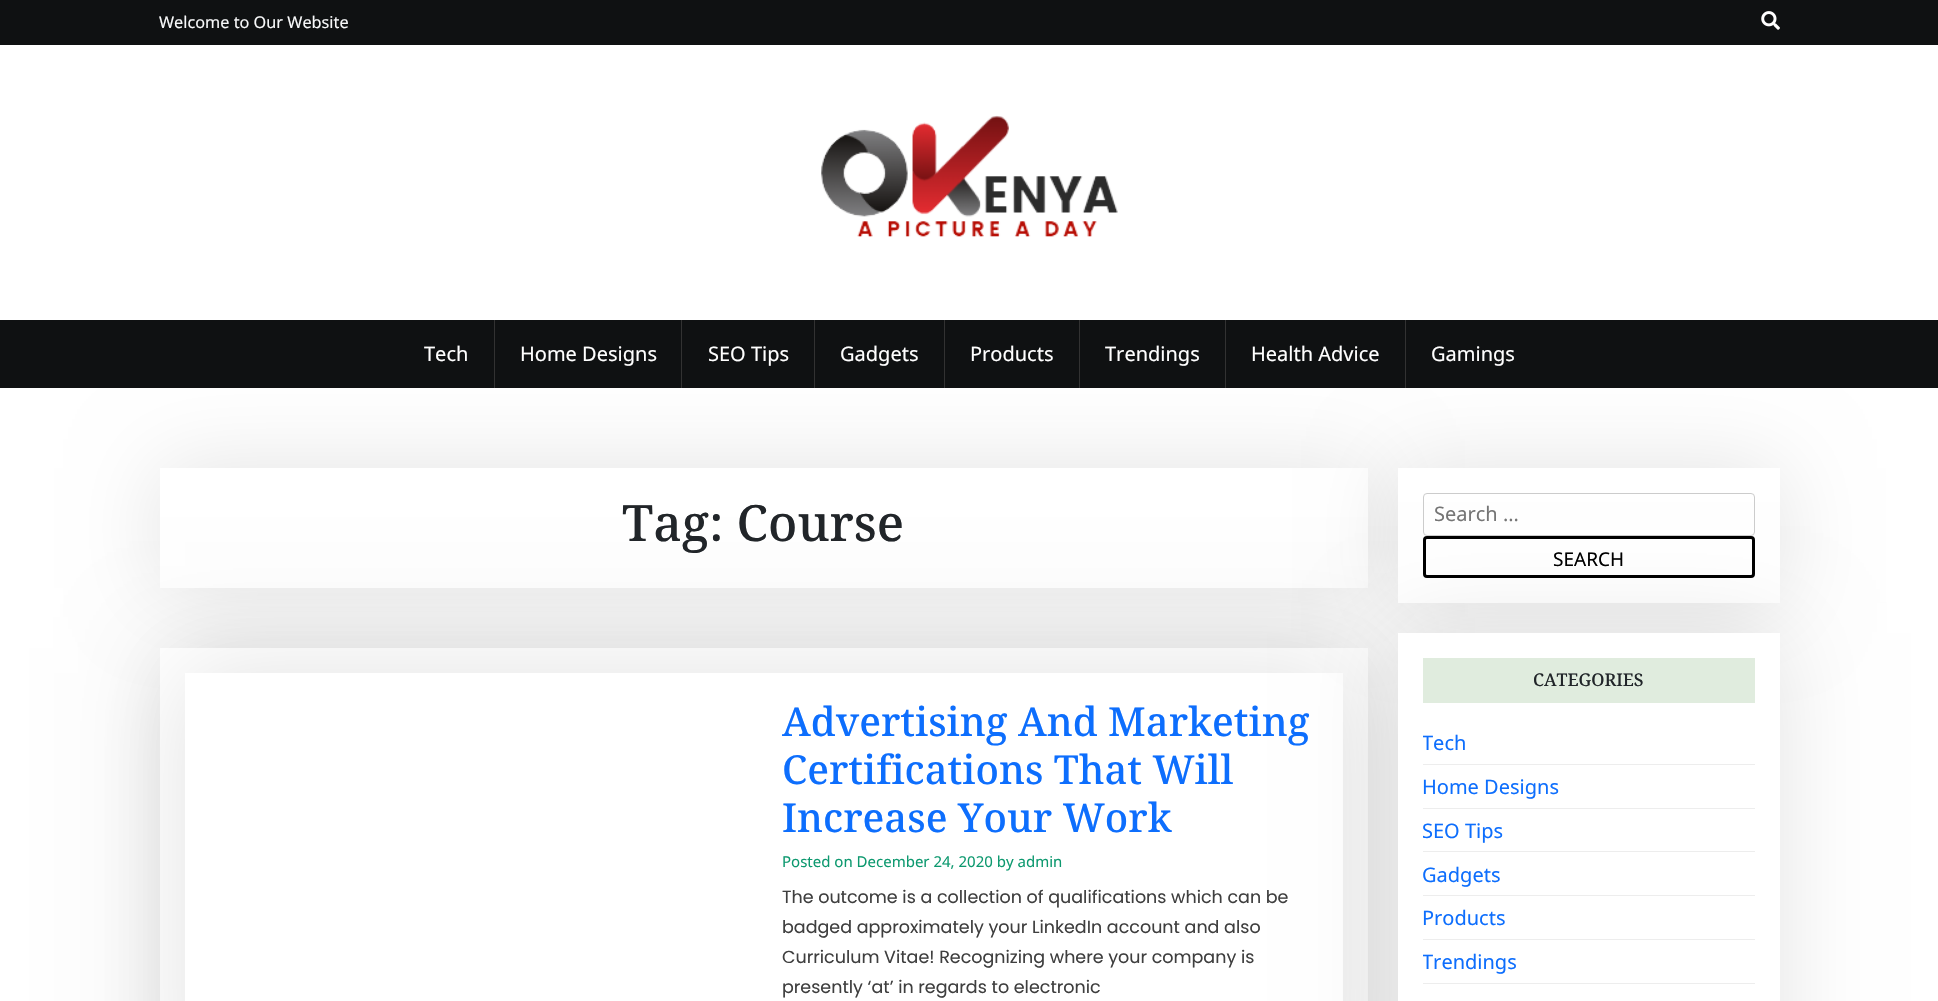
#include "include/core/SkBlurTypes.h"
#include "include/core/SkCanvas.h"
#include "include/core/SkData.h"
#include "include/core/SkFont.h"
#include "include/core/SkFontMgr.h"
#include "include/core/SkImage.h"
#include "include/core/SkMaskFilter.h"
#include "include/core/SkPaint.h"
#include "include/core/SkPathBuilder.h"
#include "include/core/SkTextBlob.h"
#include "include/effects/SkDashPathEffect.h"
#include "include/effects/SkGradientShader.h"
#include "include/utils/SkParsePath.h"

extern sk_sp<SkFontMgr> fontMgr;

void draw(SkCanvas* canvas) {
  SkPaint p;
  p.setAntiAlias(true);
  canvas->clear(SK_ColorWHITE);
  p.setColor(SkColorSetRGB(15, 17, 18));
  canvas->drawRect(SkRect::MakeLTRB(0, 0, 1938, 45), p);
  canvas->drawImageRect(SkImages::DeferredFromEncodedData(SkData::MakeFromFileName("images/1.png")), SkRect::MakeLTRB(1761, 11, 1780, 30), SkSamplingOptions());
  canvas->drawImageRect(SkImages::DeferredFromEncodedData(SkData::MakeFromFileName("images/2.png")), SkRect::MakeLTRB(821, 115, 1118, 237), SkSamplingOptions());
  canvas->drawRect(SkRect::MakeLTRB(0, 320, 1938, 388), p);
  p.setColor(SkColorSetARGB(28, 0, 0, 0));
  p.setMaskFilter(SkMaskFilter::MakeBlur(kNormal_SkBlurStyle, 44));
  canvas->drawRect(SkRect::MakeLTRB(160, 468, 1368, 588), p);
  p.setMaskFilter(nullptr);
  p.setColor(SkColorSetRGB(50, 50, 50));
  canvas->drawRect(SkRect::MakeLTRB(494, 320, 495, 388), p);
  canvas->drawRect(SkRect::MakeLTRB(681, 320, 682, 388), p);
  canvas->drawRect(SkRect::MakeLTRB(814, 320, 815, 388), p);
  canvas->drawRect(SkRect::MakeLTRB(944, 320, 945, 388), p);
  canvas->drawRect(SkRect::MakeLTRB(1079, 320, 1080, 388), p);
  canvas->drawRect(SkRect::MakeLTRB(1225, 320, 1226, 388), p);
  canvas->drawRect(SkRect::MakeLTRB(1405, 320, 1406, 388), p);
  p.setColor(SK_ColorWHITE);
  canvas->drawRect(SkRect::MakeLTRB(160, 468, 1368, 588), p);
  p.setColor(SkColorSetARGB(28, 0, 0, 0));
  p.setMaskFilter(SkMaskFilter::MakeBlur(kNormal_SkBlurStyle, 44));
  canvas->drawRect(SkRect::MakeLTRB(160, 648, 1368, 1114), p);
  p.setMaskFilter(nullptr);
  p.setColor(SK_ColorWHITE);
  canvas->drawRect(SkRect::MakeLTRB(160, 648, 1368, 1001), p);
  p.setColor(SkColorSetARGB(28, 0, 0, 0));
  p.setMaskFilter(SkMaskFilter::MakeBlur(kNormal_SkBlurStyle, 44));
  canvas->drawRect(SkRect::MakeLTRB(185, 673, 1343, 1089), p);
  p.setMaskFilter(nullptr);
  p.setColor(SK_ColorWHITE);
  canvas->drawRect(SkRect::MakeLTRB(185, 673, 1343, 1001), p);
  p.setColor(SkColorSetARGB(28, 0, 0, 0));
  p.setMaskFilter(SkMaskFilter::MakeBlur(kNormal_SkBlurStyle, 44));
  canvas->drawRect(SkRect::MakeLTRB(1398, 468, 1780, 603), p);
  p.setMaskFilter(nullptr);
  p.setColor(SK_ColorWHITE);
  canvas->drawRect(SkRect::MakeLTRB(1398, 468, 1780, 603), p);
  p.setColor(SkColorSetARGB(28, 0, 0, 0));
  p.setMaskFilter(SkMaskFilter::MakeBlur(kNormal_SkBlurStyle, 44));
  canvas->drawRect(SkRect::MakeLTRB(1398, 633, 1780, 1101), p);
  p.setMaskFilter(nullptr);
  p.setStyle(SkPaint::kStroke_Style);
  p.setStrokeWidth(1);
  p.setColor(SkColorSetRGB(204, 204, 204));
  canvas->drawRoundRect(SkRect::MakeLTRB(1423.5f, 493.5f, 1754.5f, 535.5f), 3.5f, 3.5f, p);
  p.setStrokeWidth(3);
  p.setColor(SK_ColorBLACK);
  canvas->drawRoundRect(SkRect::MakeLTRB(1424.5f, 537.5f, 1753.5f, 576.5f), 2.5f, 2.5f, p);
  p.setStyle(SkPaint::kFill_Style);
  p.setColor(SK_ColorWHITE);
  canvas->drawRect(SkRect::MakeLTRB(1398, 633, 1780, 1001), p);
  p.setColor(SkColorSetRGB(224, 236, 222));
  canvas->drawRect(SkRect::MakeLTRB(1423, 658, 1755, 703), p);
  p.setColor(SkColorSetRGB(237, 237, 237));
  canvas->drawRect(SkRect::MakeLTRB(1423, 764, 1755, 765), p);
  canvas->drawRect(SkRect::MakeLTRB(1423, 808, 1755, 809), p);
  canvas->drawRect(SkRect::MakeLTRB(1423, 851, 1755, 852), p);
  canvas->drawRect(SkRect::MakeLTRB(1423, 895, 1755, 896), p);
  canvas->drawRect(SkRect::MakeLTRB(1423, 939, 1755, 940), p);
  canvas->drawRect(SkRect::MakeLTRB(1423, 983, 1755, 984), p);
  SkFont font1(fontMgr->matchFamilyStyle("Noto Sans", SkFontStyle::Normal()), 16.25f);
  font1.setSubpixel(true);
  p.setColor(SkColorSetRGB(248, 249, 250));
  canvas->drawString("Welcome to Our Website", 159, 28, font1, p);
  SkFont font2(fontMgr->matchFamilyStyle("Noto Sans", SkFontStyle::Normal()), 20);
  font2.setSubpixel(true);
  p.setColor(SK_ColorWHITE);
  canvas->drawString("Tech", 424, 361, font2, p);
  canvas->drawString("Home Designs", 520, 361, font2, p);
  canvas->drawString("SEO Tips", 708, 361, font2, p);
  canvas->drawString("Gadgets", 840, 361, font2, p);
  canvas->drawString("Products", 970, 361, font2, p);
  canvas->drawString("Trendings", 1105, 361, font2, p);
  canvas->drawString("Health Advice", 1251, 361, font2, p);
  canvas->drawString("Gamings", 1431, 361, font2, p);
  SkFont font3(fontMgr->matchFamilyStyle("Noto Serif", SkFontStyle(500, SkFontStyle::kNormal_Width, SkFontStyle::kUpright_Slant)), 50);
  font3.setSubpixel(true);
  p.setColor(SkColorSetRGB(33, 37, 41));
  canvas->drawString("Tag: Course", 622, 541, font3, p);
  SkFont font4(fontMgr->matchFamilyStyle("Noto Serif", SkFontStyle(500, SkFontStyle::kNormal_Width, SkFontStyle::kUpright_Slant)), 40);
  font4.setSubpixel(true);
  p.setColor(SkColorSetRGB(13, 110, 253));
  canvas->drawString("Advertising And Marketing", 782, 736, font4, p);
  canvas->drawString("Certifications That Will", 782, 784, font4, p);
  canvas->drawString("Increase Your Work", 782, 832, font4, p);
  SkFont font5(fontMgr->matchFamilyStyle("Noto Sans", SkFontStyle::Normal()), 15);
  font5.setSubpixel(true);
  p.setColor(SkColorSetRGB(13, 153, 111));
  canvas->drawString("Posted on December 24, 2020 by admin", 782, 867, font5, p);
  SkFont font6(fontMgr->matchFamilyStyle("Poppins", SkFontStyle::Normal()), 17.5f);
  font6.setSubpixel(true);
  p.setColor(SkColorSetRGB(63, 63, 63));
  canvas->drawString("The outcome is a collection of qualifications which can be", 782, 903, font6, p);
  canvas->drawString("badged approximately your LinkedIn account and also", 782, 933, font6, p);
  canvas->drawString("Curriculum Vitae! Recognizing where your company is", 782, 963, font6, p);
  canvas->drawString("presently ‘at’ in regards to electronic", 782, 993, font6, p);
  p.setColor(SkColorSetRGB(117, 117, 117));
  canvas->drawString("Search …", 1434, 521, font2, p);
  SkFont font7(fontMgr->matchFamilyStyle("Noto Sans", SkFontStyle::Normal()), 19);
  font7.setSubpixel(true);
  p.setColor(SK_ColorBLACK);
  canvas->drawString("SEARCH", 1553, 566, font7, p);
  SkFont font8(fontMgr->matchFamilyStyle("Noto Serif", SkFontStyle(500, SkFontStyle::kNormal_Width, SkFontStyle::kUpright_Slant)), 17.5f);
  font8.setSubpixel(true);
  p.setColor(SkColorSetRGB(33, 37, 41));
  canvas->drawString("CATEGORIES", 1533, 686, font8, p);
  canvas->save();
  canvas->clipRect(SkRect::MakeLTRB(1423, 728, 1755, 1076));
  p.setColor(SkColorSetRGB(13, 110, 253));
  canvas->drawString("Tech", 1422, 750, font2, p);
  canvas->restore();
  canvas->drawString("Home Designs", 1422, 794, font2, p);
  canvas->drawString("SEO Tips", 1422, 838, font2, p);
  canvas->drawString("Gadgets", 1422, 882, font2, p);
  canvas->drawString("Products", 1422, 925, font2, p);
  canvas->save();
  canvas->clipRect(SkRect::MakeLTRB(1423, 728, 1755, 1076));
  canvas->drawString("Trendings", 1422, 969, font2, p);
  canvas->restore();
}
